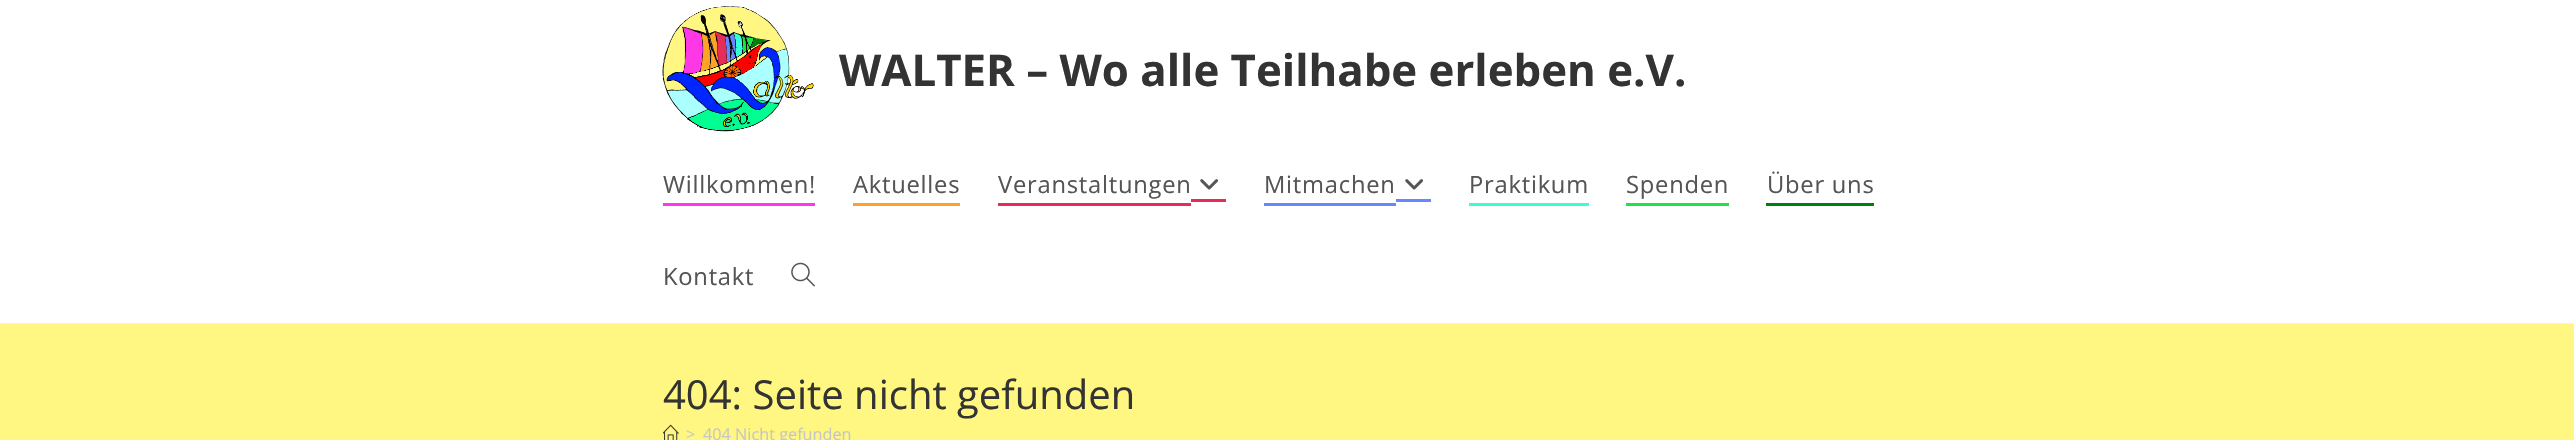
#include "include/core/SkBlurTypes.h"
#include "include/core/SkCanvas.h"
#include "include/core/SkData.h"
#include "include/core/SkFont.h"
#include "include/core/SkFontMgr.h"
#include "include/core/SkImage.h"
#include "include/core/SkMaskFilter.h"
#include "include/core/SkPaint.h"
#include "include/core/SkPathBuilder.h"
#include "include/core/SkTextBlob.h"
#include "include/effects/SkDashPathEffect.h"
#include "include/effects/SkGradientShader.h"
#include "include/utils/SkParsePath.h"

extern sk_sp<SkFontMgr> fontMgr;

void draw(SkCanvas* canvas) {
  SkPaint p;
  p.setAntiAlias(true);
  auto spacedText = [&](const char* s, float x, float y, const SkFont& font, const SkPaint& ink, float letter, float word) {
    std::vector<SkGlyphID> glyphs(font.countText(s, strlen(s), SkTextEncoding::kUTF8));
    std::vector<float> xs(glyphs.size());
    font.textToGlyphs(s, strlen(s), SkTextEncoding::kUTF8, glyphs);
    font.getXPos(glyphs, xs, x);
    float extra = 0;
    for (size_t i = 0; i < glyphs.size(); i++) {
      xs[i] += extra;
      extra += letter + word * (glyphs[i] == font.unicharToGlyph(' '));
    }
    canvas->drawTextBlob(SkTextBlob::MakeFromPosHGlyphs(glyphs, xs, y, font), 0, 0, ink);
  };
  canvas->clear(SK_ColorWHITE);
  p.setColor(SkColorSetRGB(241, 241, 241));
  canvas->drawRect(SkRect::MakeLTRB(0, 323, 2574, 324), p);
  canvas->drawImageRect(SkImages::DeferredFromEncodedData(SkData::MakeFromFileName("images/1.png")), SkRect::MakeLTRB(662, 6, 814, 132), SkSamplingOptions());
  p.setColor(SkColorSetRGB(255, 55, 231));
  canvas->drawRect(SkRect::MakeLTRB(663, 203, 815, 206), p);
  p.setColor(SkColorSetRGB(255, 163, 39));
  canvas->drawRect(SkRect::MakeLTRB(853, 203, 960, 206), p);
  p.setColor(SkColorSetRGB(230, 45, 87));
  canvas->drawRect(SkRect::MakeLTRB(998, 203, 1191, 206), p);
  canvas->drawRect(SkRect::MakeLTRB(1191, 199, 1226, 202), p);
  canvas->drawImageRect(SkImages::DeferredFromEncodedData(SkData::MakeFromFileName("images/2.png")), SkRect::MakeLTRB(1200, 179, 1218, 190), SkSamplingOptions());
  p.setColor(SkColorSetRGB(103, 135, 254));
  canvas->drawRect(SkRect::MakeLTRB(1264, 203, 1396, 206), p);
  canvas->drawRect(SkRect::MakeLTRB(1396, 199, 1431, 202), p);
  canvas->drawImageRect(SkImages::DeferredFromEncodedData(SkData::MakeFromFileName("images/2.png")), SkRect::MakeLTRB(1405, 179, 1423, 190), SkSamplingOptions());
  p.setColor(SkColorSetRGB(55, 255, 213));
  canvas->drawRect(SkRect::MakeLTRB(1469, 203, 1589, 206), p);
  p.setColor(SkColorSetRGB(28, 228, 68));
  canvas->drawRect(SkRect::MakeLTRB(1626, 203, 1729, 206), p);
  p.setColor(SkColorSetRGB(0, 127, 14));
  canvas->drawRect(SkRect::MakeLTRB(1766, 203, 1874, 206), p);
  canvas->drawImageRect(SkImages::DeferredFromEncodedData(SkData::MakeFromFileName("images/3.png")), SkRect::MakeLTRB(791, 262, 815, 287), SkSamplingOptions());
  p.setColor(SkColorSetRGB(255, 247, 129));
  canvas->drawRect(SkRect::MakeLTRB(0, 324, 2574, 440), p);
  canvas->drawImageRect(SkImages::DeferredFromEncodedData(SkData::MakeFromFileName("images/4.png")), SkRect::MakeLTRB(663, 424, 679, 440), SkSamplingOptions());
  SkFont font1(fontMgr->matchFamilyStyle("Open Sans", SkFontStyle::Bold()), 43.75f);
  font1.setSubpixel(true);
  p.setColor(SkColorSetRGB(51, 51, 51));
  canvas->drawString("WALTER – Wo alle Teilhabe erleben e.V.", 839, 86, font1, p);
  SkFont font2(fontMgr->matchFamilyStyle("Open Sans", SkFontStyle::Normal()), 23.75f);
  font2.setSubpixel(true);
  p.setColor(SkColorSetRGB(85, 85, 85));
  spacedText("Willkommen!", 663, 193, font2, p, 0.75f, 0);
  spacedText("Aktuelles", 853, 193, font2, p, 0.75f, 0);
  spacedText("Veranstaltungen", 998, 193, font2, p, 0.75f, 0);
  spacedText("Mitmachen", 1264, 193, font2, p, 0.75f, 0);
  spacedText("Praktikum", 1469, 193, font2, p, 0.75f, 0);
  spacedText("Spenden", 1626, 193, font2, p, 0.75f, 0);
  spacedText("Über uns", 1767, 193, font2, p, 0.75f, 0);
  spacedText("Kontakt", 663, 285, font2, p, 0.75f, 0);
  SkFont font3(fontMgr->matchFamilyStyle("Open Sans", SkFontStyle::Normal()), 40);
  font3.setSubpixel(true);
  p.setColor(SkColorSetRGB(51, 51, 51));
  canvas->drawString("404: Seite nicht gefunden", 663, 409, font3, p);
  SkFont font4(fontMgr->matchFamilyStyle("Open Sans", SkFontStyle::Normal()), 16.25f);
  font4.setSubpixel(true);
  p.setColor(SkColorSetRGB(198, 198, 198));
  canvas->drawString(">", 686, 440, font4, p);
  canvas->drawString("404 Nicht gefunden", 703, 440, font4, p);
}
